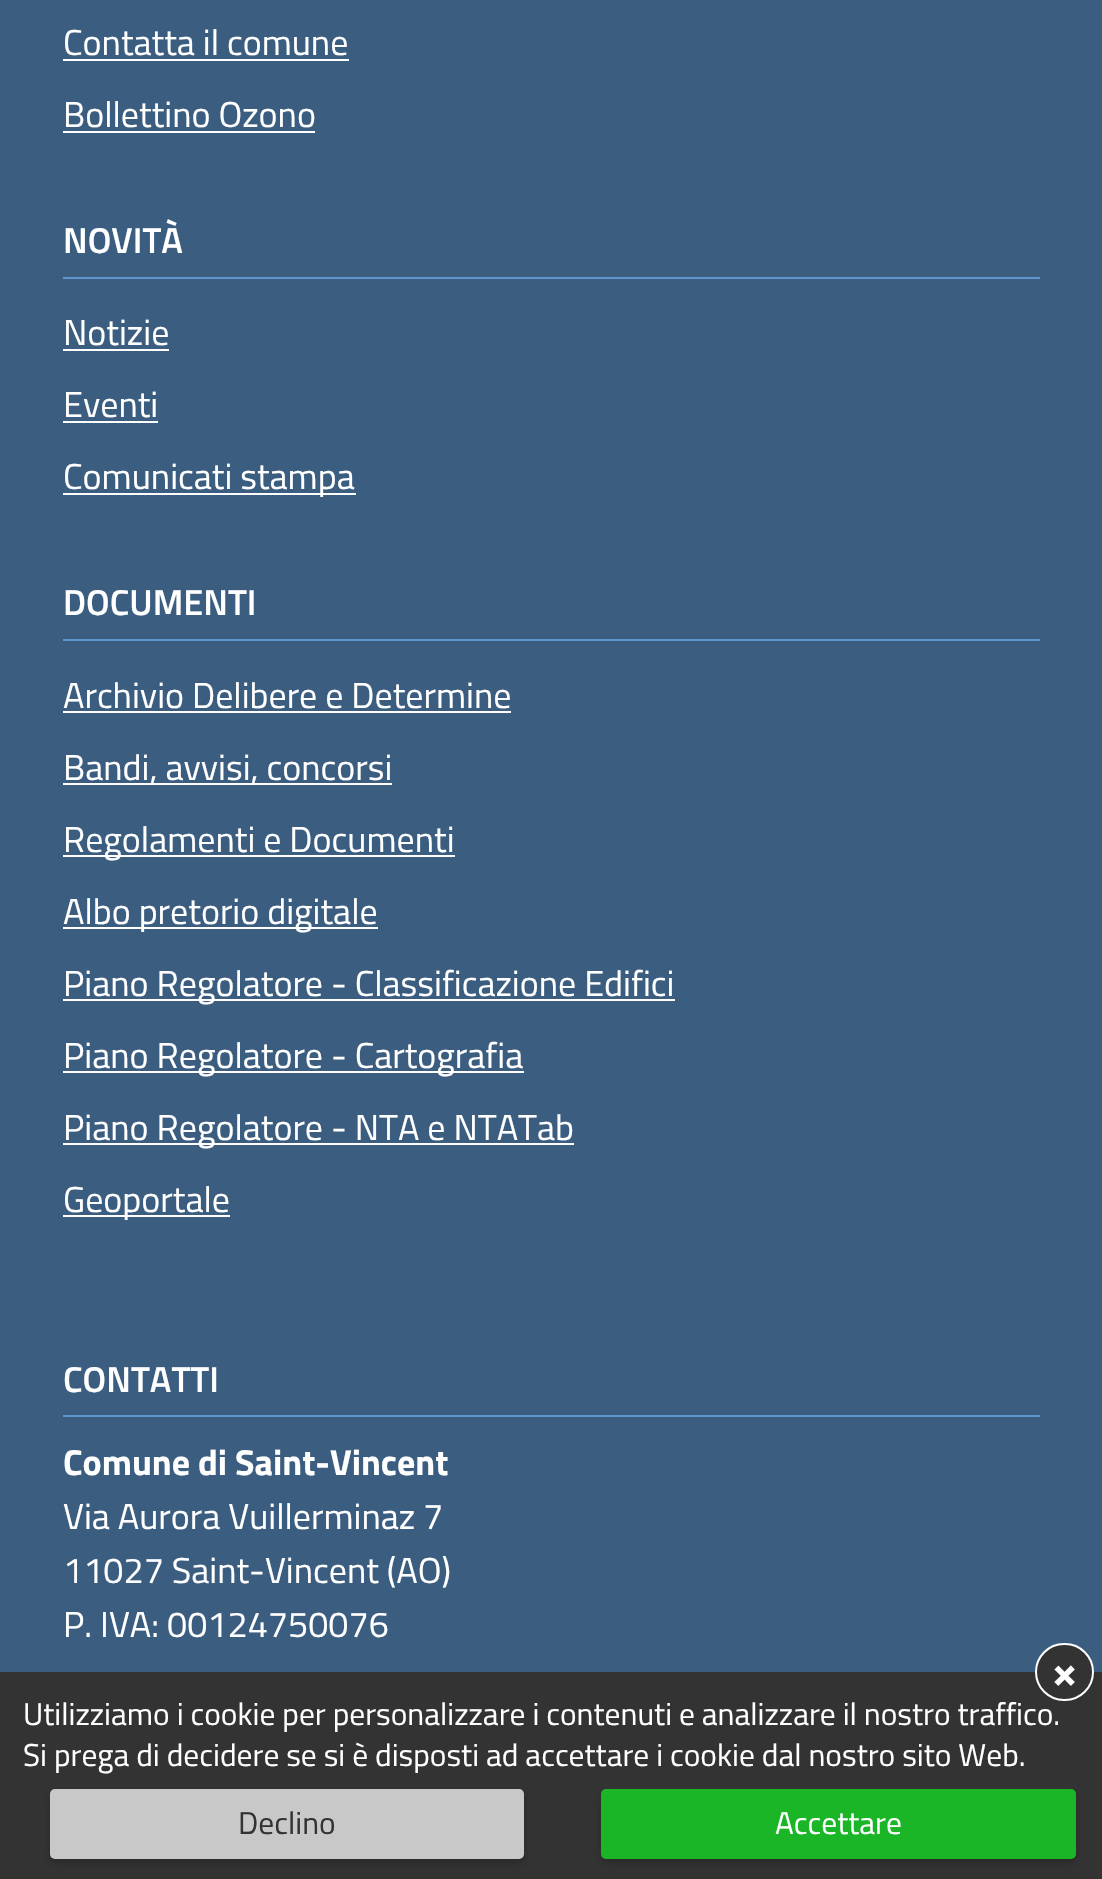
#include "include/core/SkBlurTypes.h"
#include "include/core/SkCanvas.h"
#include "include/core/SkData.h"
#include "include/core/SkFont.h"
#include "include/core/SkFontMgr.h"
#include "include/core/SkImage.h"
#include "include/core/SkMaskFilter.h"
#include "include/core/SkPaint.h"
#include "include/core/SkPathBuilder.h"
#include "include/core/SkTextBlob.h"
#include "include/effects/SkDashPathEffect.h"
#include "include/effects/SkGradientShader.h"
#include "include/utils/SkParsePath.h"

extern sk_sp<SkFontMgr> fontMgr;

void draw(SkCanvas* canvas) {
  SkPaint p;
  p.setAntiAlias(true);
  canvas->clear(SkColorSetRGB(59, 93, 128));
  p.setColor(SK_ColorWHITE);
  canvas->drawRect(SkRect::MakeLTRB(63, 59, 349, 61), p);
  canvas->drawRect(SkRect::MakeLTRB(63, 131, 315, 133), p);
  p.setColor(SkColorSetRGB(94, 149, 204));
  canvas->drawRect(SkRect::MakeLTRB(63, 277, 1040, 279), p);
  p.setColor(SK_ColorWHITE);
  canvas->drawRect(SkRect::MakeLTRB(63, 349, 169, 351), p);
  canvas->drawRect(SkRect::MakeLTRB(63, 421, 158, 423), p);
  canvas->drawRect(SkRect::MakeLTRB(63, 493, 356, 495), p);
  p.setColor(SkColorSetRGB(94, 149, 204));
  canvas->drawRect(SkRect::MakeLTRB(63, 639, 1040, 641), p);
  p.setColor(SK_ColorWHITE);
  canvas->drawRect(SkRect::MakeLTRB(63, 711, 511, 713), p);
  canvas->drawRect(SkRect::MakeLTRB(63, 783, 392, 785), p);
  canvas->drawRect(SkRect::MakeLTRB(63, 855, 455, 857), p);
  canvas->drawRect(SkRect::MakeLTRB(63, 927, 378, 929), p);
  canvas->drawRect(SkRect::MakeLTRB(63, 999, 675, 1001), p);
  canvas->drawRect(SkRect::MakeLTRB(63, 1071, 524, 1073), p);
  canvas->drawRect(SkRect::MakeLTRB(63, 1143, 574, 1145), p);
  canvas->drawRect(SkRect::MakeLTRB(63, 1215, 230, 1217), p);
  p.setColor(SkColorSetRGB(94, 149, 204));
  canvas->drawRect(SkRect::MakeLTRB(63, 1415, 1040, 1417), p);
  p.setColor(SkColorSetRGB(51, 51, 51));
  canvas->drawRect(SkRect::MakeLTRB(0, 1672, 1102, 1879), p);
  canvas->drawRoundRect(SkRect::MakeLTRB(1036, 1644, 1093, 1700), 28, 28, p);
  p.setStyle(SkPaint::kStroke_Style);
  p.setStrokeWidth(2);
  p.setColor(SK_ColorWHITE);
  canvas->drawRoundRect(SkRect::MakeLTRB(1036, 1644, 1093, 1700), 28, 28, p);
  p.setStyle(SkPaint::kFill_Style);
  p.setColor(SkColorSetARGB(51, 0, 0, 0));
  p.setMaskFilter(SkMaskFilter::MakeBlur(kNormal_SkBlurStyle, 3.5f));
  canvas->drawRoundRect(SkRect::MakeLTRB(50, 1793, 524, 1863), 5, 5, p);
  p.setMaskFilter(nullptr);
  p.setColor(SkColorSetRGB(200, 200, 200));
  canvas->drawRoundRect(SkRect::MakeLTRB(50, 1789, 524, 1859), 5, 5, p);
  p.setColor(SkColorSetARGB(51, 0, 0, 0));
  p.setMaskFilter(SkMaskFilter::MakeBlur(kNormal_SkBlurStyle, 3.5f));
  canvas->drawRoundRect(SkRect::MakeLTRB(601, 1793, 1076, 1863), 5, 5, p);
  p.setMaskFilter(nullptr);
  p.setColor(SkColorSetRGB(27, 182, 39));
  canvas->drawRoundRect(SkRect::MakeLTRB(601, 1789, 1076, 1859), 5, 5, p);
  SkFont font1(fontMgr->matchFamilyStyle("Titillium Web", SkFontStyle::Normal()), 36);
  font1.setSubpixel(true);
  p.setColor(SK_ColorWHITE);
  canvas->drawString("Contatta il comune", 63, 55, font1, p);
  canvas->drawString("Bollettino Ozono", 63, 127, font1, p);
  SkFont font2(fontMgr->matchFamilyStyle("Titillium Web", SkFontStyle(600, SkFontStyle::kNormal_Width, SkFontStyle::kUpright_Slant)), 36);
  font2.setSubpixel(true);
  canvas->drawString("NOVITÀ", 63, 253, font2, p);
  canvas->drawString("Notizie", 63, 345, font1, p);
  canvas->drawString("Eventi", 63, 417, font1, p);
  canvas->drawString("Comunicati stampa", 63, 489, font1, p);
  canvas->drawString("DOCUMENTI", 63, 615, font2, p);
  canvas->drawString("Archivio Delibere e Determine", 63, 708, font1, p);
  canvas->drawString("Bandi, avvisi, concorsi", 63, 780, font1, p);
  canvas->drawString("Regolamenti e Documenti", 63, 852, font1, p);
  canvas->drawString("Albo pretorio digitale", 63, 924, font1, p);
  canvas->drawString("Piano Regolatore - Classificazione Edifici", 63, 996, font1, p);
  canvas->drawString("Piano Regolatore - Cartografia", 63, 1068, font1, p);
  canvas->drawString("Piano Regolatore - NTA e NTATab", 63, 1140, font1, p);
  canvas->drawString("Geoportale", 63, 1212, font1, p);
  canvas->drawString("CONTATTI", 63, 1392, font2, p);
  SkFont font3(fontMgr->matchFamilyStyle("Titillium Web", SkFontStyle::Bold()), 36);
  font3.setSubpixel(true);
  canvas->drawString("Comune di Saint-Vincent", 63, 1475, font3, p);
  canvas->drawString("Via Aurora Vuillerminaz 7", 63, 1529, font1, p);
  canvas->drawString("11027 Saint-Vincent (AO)", 63, 1583, font1, p);
  canvas->drawString("P. IVA: 00124750076", 63, 1637, font1, p);
  SkFont font4(fontMgr->matchFamilyStyle("Titillium Web", SkFontStyle::Bold()), 45);
  font4.setSubpixel(true);
  canvas->drawString("×", 1052, 1687, font4, p);
  SkFont font5(fontMgr->matchFamilyStyle("Titillium Web", SkFontStyle::Normal()), 31.5f);
  font5.setSubpixel(true);
  p.setColor(SkColorSetRGB(51, 51, 51));
  canvas->drawString("Declino", 238, 1834, font5, p);
  p.setColor(SK_ColorWHITE);
  canvas->drawString("Accettare", 775, 1834, font5, p);
  canvas->drawString("Utilizziamo i cookie per personalizzare i contenuti e analizzare il nostro traffico.", 23, 1725, font5, p);
  canvas->drawString("Si prega di decidere se si è disposti ad accettare i cookie dal nostro sito Web.", 23, 1766, font5, p);
}
